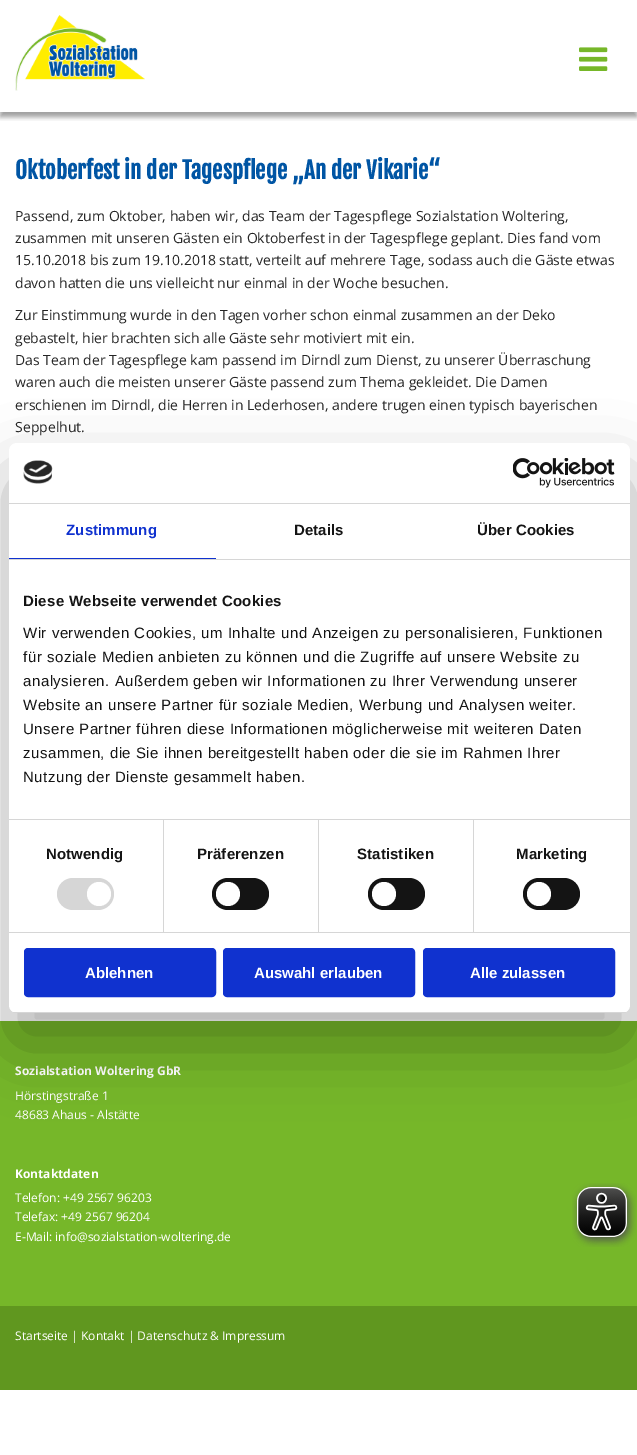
%!PS-Adobe-3.0
%%BoundingBox: 0 0 637 1455
%%LanguageLevel: 3
%%Pages: 1
%%EndComments
%%BeginProlog
/setink { dup -16 bitshift 255 div exch dup -8 bitshift 255 and 255 div exch 255 and 255 div setrgbcolor } def
/usefont { [ exch dup neg 0 0 3 -1 roll 0 0 ] selectfont } def
/setalpha { dup .setfillconstantalpha .setstrokeconstantalpha } def
/disc { newpath 0 360 arc closepath } def
/rrect { 5 dict begin { /r /h /w /y /x } { exch def } forall
  x r add y moveto x w add y 2 copy h add r arct x w add y h add x 1 index r arct
  x y h add x y r arct x y 2 copy exch w add exch r arct closepath end } def
/softshadow { 12 dict begin { /a /b /q /h /w /y /x } { exch def } forall gsave /was 0 def
  9 -2 -9 { dup b mul 4 div /e exch def 1 sub .425 mul 2.718 exch exp 1 add a .99 .min exch div /now exch def
    1 1 now sub 1 was sub div sub setalpha /was now def
    w h .min e 2 mul add 0 gt { x e sub y e sub w e 2 mul add h e 2 mul add
      q e add b .6 mul add w h .min 2 div e add .min 0 .max rrect fill } if } for grestore end } def
/drawimage { 5 dict begin { /h /w /y /x /name } { exch def } forall
  gsave x y translate w h scale
  w h 8 [w 0 0 h 0 0] name (r) file false 3 colorimage grestore end } def
%%EndProlog
%%BeginSetup
<< /PageSize [637 1455] /PageUsesTransparency true >> setpagedevice
%%EndSetup
%%Page: 1 1
0 .pushpdf14devicefilter
0 1455 translate 1 -1 scale
4 setmiterlimit
16#FFFFFF setink
0 0 637 1455 rectfill
gsave
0 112 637 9 rectclip
16#141414 setink
0 5 637 112 0 2.5 0.4 softshadow
grestore
(img1.raw) 15 15 130 76 drawimage
(img2.raw) 579 47 29 24 drawimage
/FjallaOne-Bold 23 usefont
16#0055A4 setink
15 179 moveto (Oktoberfest in der Tagespflege „An der Vikarie“) show
/OpenSans-Regular 14 usefont
16#252525 setink
[
    [(Passend, zum Oktober, haben wir, das Team der Tagespflege Sozialstation Woltering,) 15 221]
    [(zusammen mit unseren Gästen ein Oktoberfest in der Tagespflege geplant. Dies fand vom) 15 243]
    [(15.10.2018 bis zum 19.10.2018 statt, verteilt auf mehrere Tage, sodass auch die Gäste etwas) 15 265]
    [(davon hatten die uns vielleicht nur einmal in der Woche besuchen.) 15 288]
    [(Zur Einstimmung wurde in den Tagen vorher schon einmal zusammen an der Deko) 15 320]
    [(gebastelt, hier brachten sich alle Gäste sehr motiviert mit ein.) 15 343]
    [(Das Team der Tagespflege kam passend im Dirndl zum Dienst, zu unserer Überraschung) 15 365]
    [(waren auch die meisten unserer Gäste passend zum Thema gekleidet. Die Damen) 15 387]
    [(erschienen im Dirndl, die Herren in Lederhosen, andere trugen einen typisch bayerischen) 15 410]
    [(Seppelhut.) 15 432]
] { aload pop moveto show } forall
16#76B729 setink
0 1021 637 285 rectfill
/OpenSans-Bold 12 usefont
16#FFFFFF setink
15 1075 moveto (Sozialstation Woltering GbR) show
/OpenSans-Regular 12 usefont
15 1100 moveto (Hörstingstraße 1) show
15 1119 moveto (48683 Ahaus - Alstätte) show
/OpenSans-Bold 12 usefont
15 1178 moveto (Kontaktdaten) show
/OpenSans-Regular 12 usefont
[
    [(Telefon: +49 2567 96203) 15 1202]
    [(Telefax: +49 2567 96204) 15 1221]
    [(E-Mail: info@sozialstation-woltering.de) 15 1241]
] { aload pop moveto show } forall
16#60971F setink
0 1306 637 84 rectfill
16#FFFFFF setink
15 1340 moveto (Startseite | Kontakt | Datenschutz & Impressum) show
16#000000 setink
9 475 621 570 8 34 0.3 softshadow
16#FFFFFF setink
9 443 621 570 8 rrect fill
16#D6D6D6 setink
9 503 621 1 rectfill
(img3.raw) 23 460 30 24 drawimage
(img4.raw) 513 458 102 30 drawimage
9 559 621 1 rectfill
16#1032CF setink
9 558 207 1 rectfill
/LiberationSans-Bold 15 usefont
66 535 moveto 0.1 0 (Zustimmung) ashow
16#141414 setink
294 535 moveto 0.1 0 (Details) ashow
477 535 moveto 0.1 0 (Über Cookies) ashow
16#D6D6D6 setink
9 819 621 1 rectfill
16#141414 setink
23 606 moveto 0.25 0 (Diese Webseite verwendet Cookies) ashow
/LiberationSans-Regular 15 usefont
23 638 moveto 0.5 0 (Wir verwenden Cookies, um Inhalte und Anzeigen zu personalisieren, Funktionen) ashow
23 662 moveto 0.5 0 (für soziale Medien anbieten zu können und die Zugriffe auf unsere Website zu) ashow
23 686 moveto 0.5 0 (analysieren. Außerdem geben wir Informationen zu Ihrer Verwendung unserer) ashow
23 710 moveto 0.5 0 (Website an unsere Partner für soziale Medien, Werbung und Analysen weiter.) ashow
23 734 moveto 0.5 0 (Unsere Partner führen diese Informationen möglicherweise mit weiteren Daten) ashow
23 758 moveto 0.5 0 (zusammen, die Sie ihnen bereitgestellt haben oder die sie im Rahmen Ihrer) ashow
23 782 moveto 0.5 0 (Nutzung der Dienste gesammelt haben.) ashow
16#D6D6D6 setink
9 932 621 1 rectfill
163 820 1 112 rectfill
/LiberationSans-Bold 15 usefont
16#141414 setink
46 859 moveto 0.1 0 (Notwendig) ashow
16#D6D6D6 setink
57 878 57 32 16 rrect fill
16#FFFFFF setink
99 894 12 disc fill
16#D6D6D6 setink
318 820 1 112 rectfill
16#141414 setink
197 859 moveto 0.1 0 (Präferenzen) ashow
212 878 57 32 16 rrect fill
16#FFFFFF setink
228 894 12 disc fill
16#D6D6D6 setink
473 820 1 112 rectfill
16#141414 setink
357 859 moveto 0.1 0 (Statistiken) ashow
368 878 57 32 16 rrect fill
16#FFFFFF setink
384 894 12 disc fill
16#141414 setink
516 859 moveto 0.1 0 (Marketing) ashow
523 878 57 32 16 rrect fill
16#FFFFFF setink
539 894 12 disc fill
gsave
9 443 621 570 8 rrect clip newpath
16#D6D6D6 setink
9 1012 621 1 rectfill
grestore
16#1032CF setink
25 949 190 47 3 rrect gsave fill grestore
2 setlinewidth
stroke
16#FFFFFF setink
85 978 moveto (Ablehnen) show
16#1032CF setink
224 949 190 47 3 rrect gsave fill grestore
stroke
16#FFFFFF setink
254 978 moveto (Auswahl erlauben) show
16#1032CF setink
424 949 190 47 3 rrect gsave fill grestore
stroke
16#FFFFFF setink
470 978 moveto (Alle zulassen) show
(img5.raw) 572 1183 64 64 drawimage
.poppdf14devicefilter showpage
%%EOF
